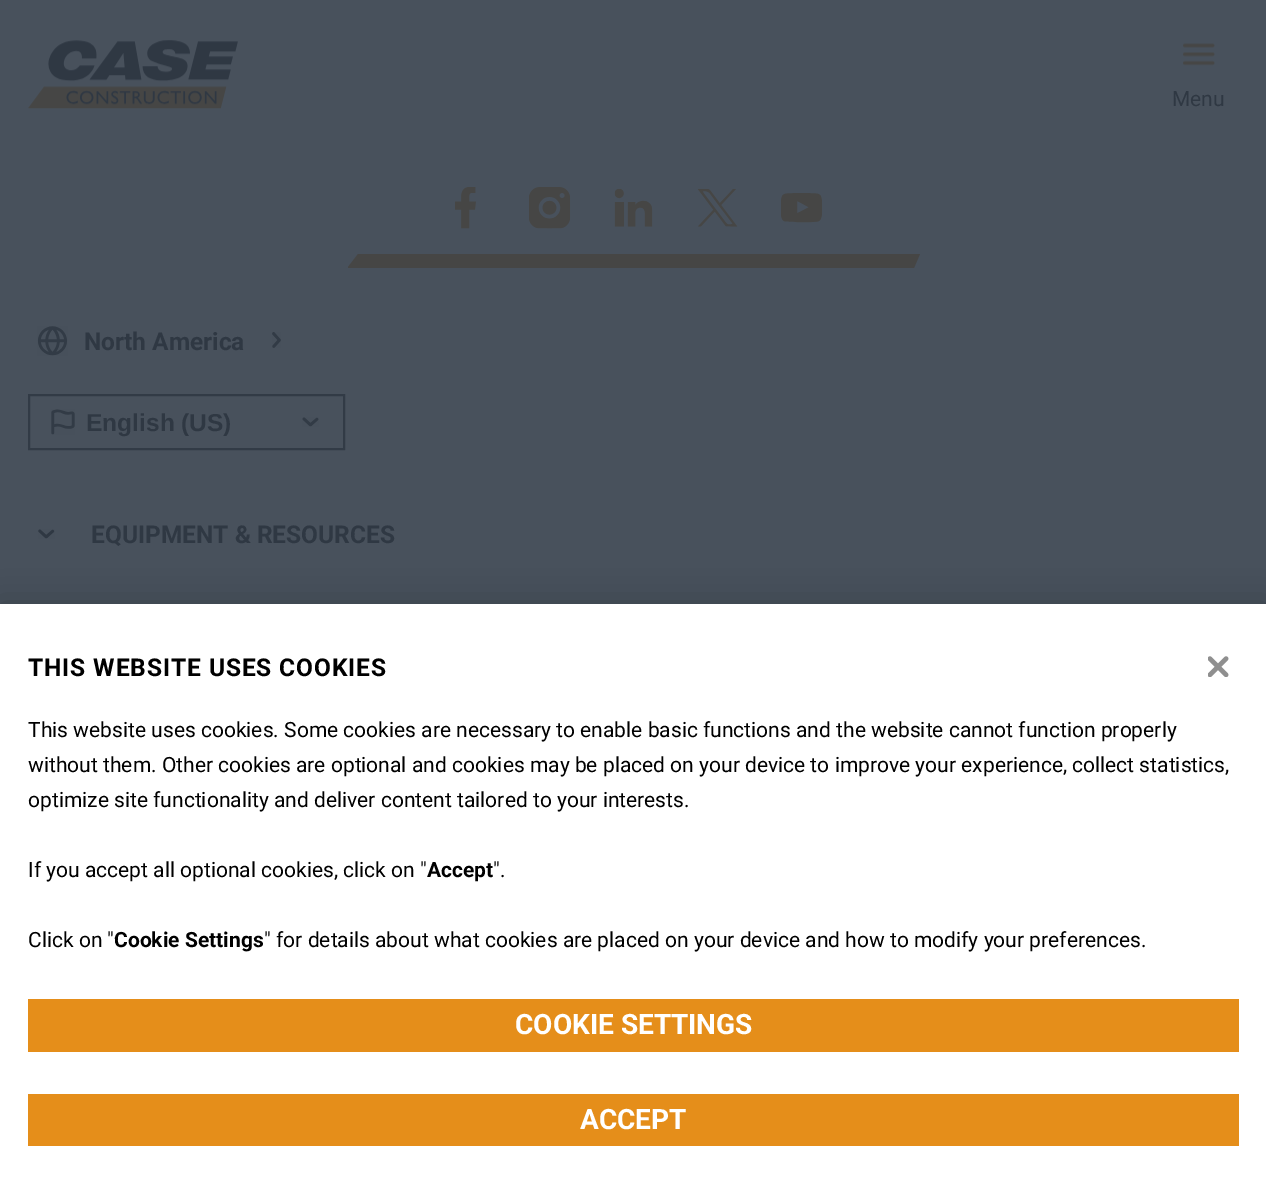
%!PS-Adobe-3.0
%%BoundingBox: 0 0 1266 1188
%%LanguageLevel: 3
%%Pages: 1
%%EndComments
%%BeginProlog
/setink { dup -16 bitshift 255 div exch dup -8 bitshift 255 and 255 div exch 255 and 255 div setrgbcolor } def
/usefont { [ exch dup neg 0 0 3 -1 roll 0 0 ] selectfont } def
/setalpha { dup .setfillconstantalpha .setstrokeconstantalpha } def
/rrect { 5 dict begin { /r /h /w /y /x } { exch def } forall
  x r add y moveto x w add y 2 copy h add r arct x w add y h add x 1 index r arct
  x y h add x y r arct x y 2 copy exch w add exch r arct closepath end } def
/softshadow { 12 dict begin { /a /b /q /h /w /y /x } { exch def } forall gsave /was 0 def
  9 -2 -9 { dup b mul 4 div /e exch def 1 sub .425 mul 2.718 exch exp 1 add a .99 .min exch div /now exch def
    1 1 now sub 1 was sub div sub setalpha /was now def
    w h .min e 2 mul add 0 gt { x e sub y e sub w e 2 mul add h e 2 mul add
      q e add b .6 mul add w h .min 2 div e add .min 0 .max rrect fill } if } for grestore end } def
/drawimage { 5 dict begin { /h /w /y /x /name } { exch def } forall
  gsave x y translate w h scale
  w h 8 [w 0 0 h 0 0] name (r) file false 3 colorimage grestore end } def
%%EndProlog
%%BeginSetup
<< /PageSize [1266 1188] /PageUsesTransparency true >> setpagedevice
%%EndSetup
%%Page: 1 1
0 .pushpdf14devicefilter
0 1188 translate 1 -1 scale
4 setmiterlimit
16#48515C setink
0 0 1266 1188 rectfill
(img1.raw) 28 40 210 69 drawimage
(img2.raw) 1183 43 32 23 drawimage
/Roboto-Regular 21 usefont
16#2F3843 setink
1172 106 moveto (Menu) show
(img3.raw) 455 187 21 42 drawimage
(img4.raw) 529 187 42 42 drawimage
(img5.raw) 614 188 39 39 drawimage
(img6.raw) 697 188 41 39 drawimage
(img7.raw) 781 193 42 30 drawimage
16#464645 setink
348 267 moveto 358 254 lineto 920 254 lineto 914 268 lineto 348 268 lineto closepath fill
(img8.raw) 37 326 31 30 drawimage
/Roboto-Bold 24.5 usefont
16#2F3843 setink
84 350 moveto (North America) show
(img9.raw) 272 332 9 16 drawimage
16#323B46 setink
2 setlinewidth
29 395 315 54 rectstroke
(img10.raw) 51 409 24 26 drawimage
/LiberationSans-Bold 24.5 usefont
16#2F3843 setink
86 431 moveto (English \(US\)) show
(img11.raw) 302 417 17 10 drawimage
(img12.raw) 38 529 17 10 drawimage
/Roboto-Bold 24.5 usefont
91 543 moveto (EQUIPMENT & RESOURCES) show
16#000000 setink
0 604 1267 584 0 16 0.2 softshadow
16#FFFFFF setink
0 604 1266 584 rectfill
(img13.raw) 1208 656 21 21 drawimage
16#000000 setink
28 676 moveto 0.9 0 (THIS WEBSITE USES COOKIES) ashow
/Roboto-Regular 21 usefont
[
    [(This website uses cookies. Some cookies are necessary to enable basic functions and the website cannot function properly) 28 737]
    [(without them. Other cookies are optional and cookies may be placed on your device to improve your experience, collect statistics,) 28 772]
    [(optimize site functionality and deliver content tailored to your interests.) 28 807]
    [(If you accept all optional cookies, click on ") 28 877]
] { aload pop moveto show } forall
/Roboto-Bold 21 usefont
427 877 moveto (Accept) show
/Roboto-Regular 21 usefont
493 877 moveto (".) show
28 947 moveto (Click on ") show
/Roboto-Bold 21 usefont
114 947 moveto (Cookie Settings) show
/Roboto-Regular 21 usefont
264 947 moveto (" for details about what cookies are placed on your device and how to modify your preferences.) show
16#E58E1A setink
28 999 1211 53 rectfill
/Roboto-Bold 28 usefont
16#FFFFFF setink
515 1034 moveto (COOKIE SETTINGS) show
16#E58E1A setink
28 1094 1211 52 rectfill
16#FFFFFF setink
580 1129 moveto (ACCEPT) show
.poppdf14devicefilter showpage
%%EOF
